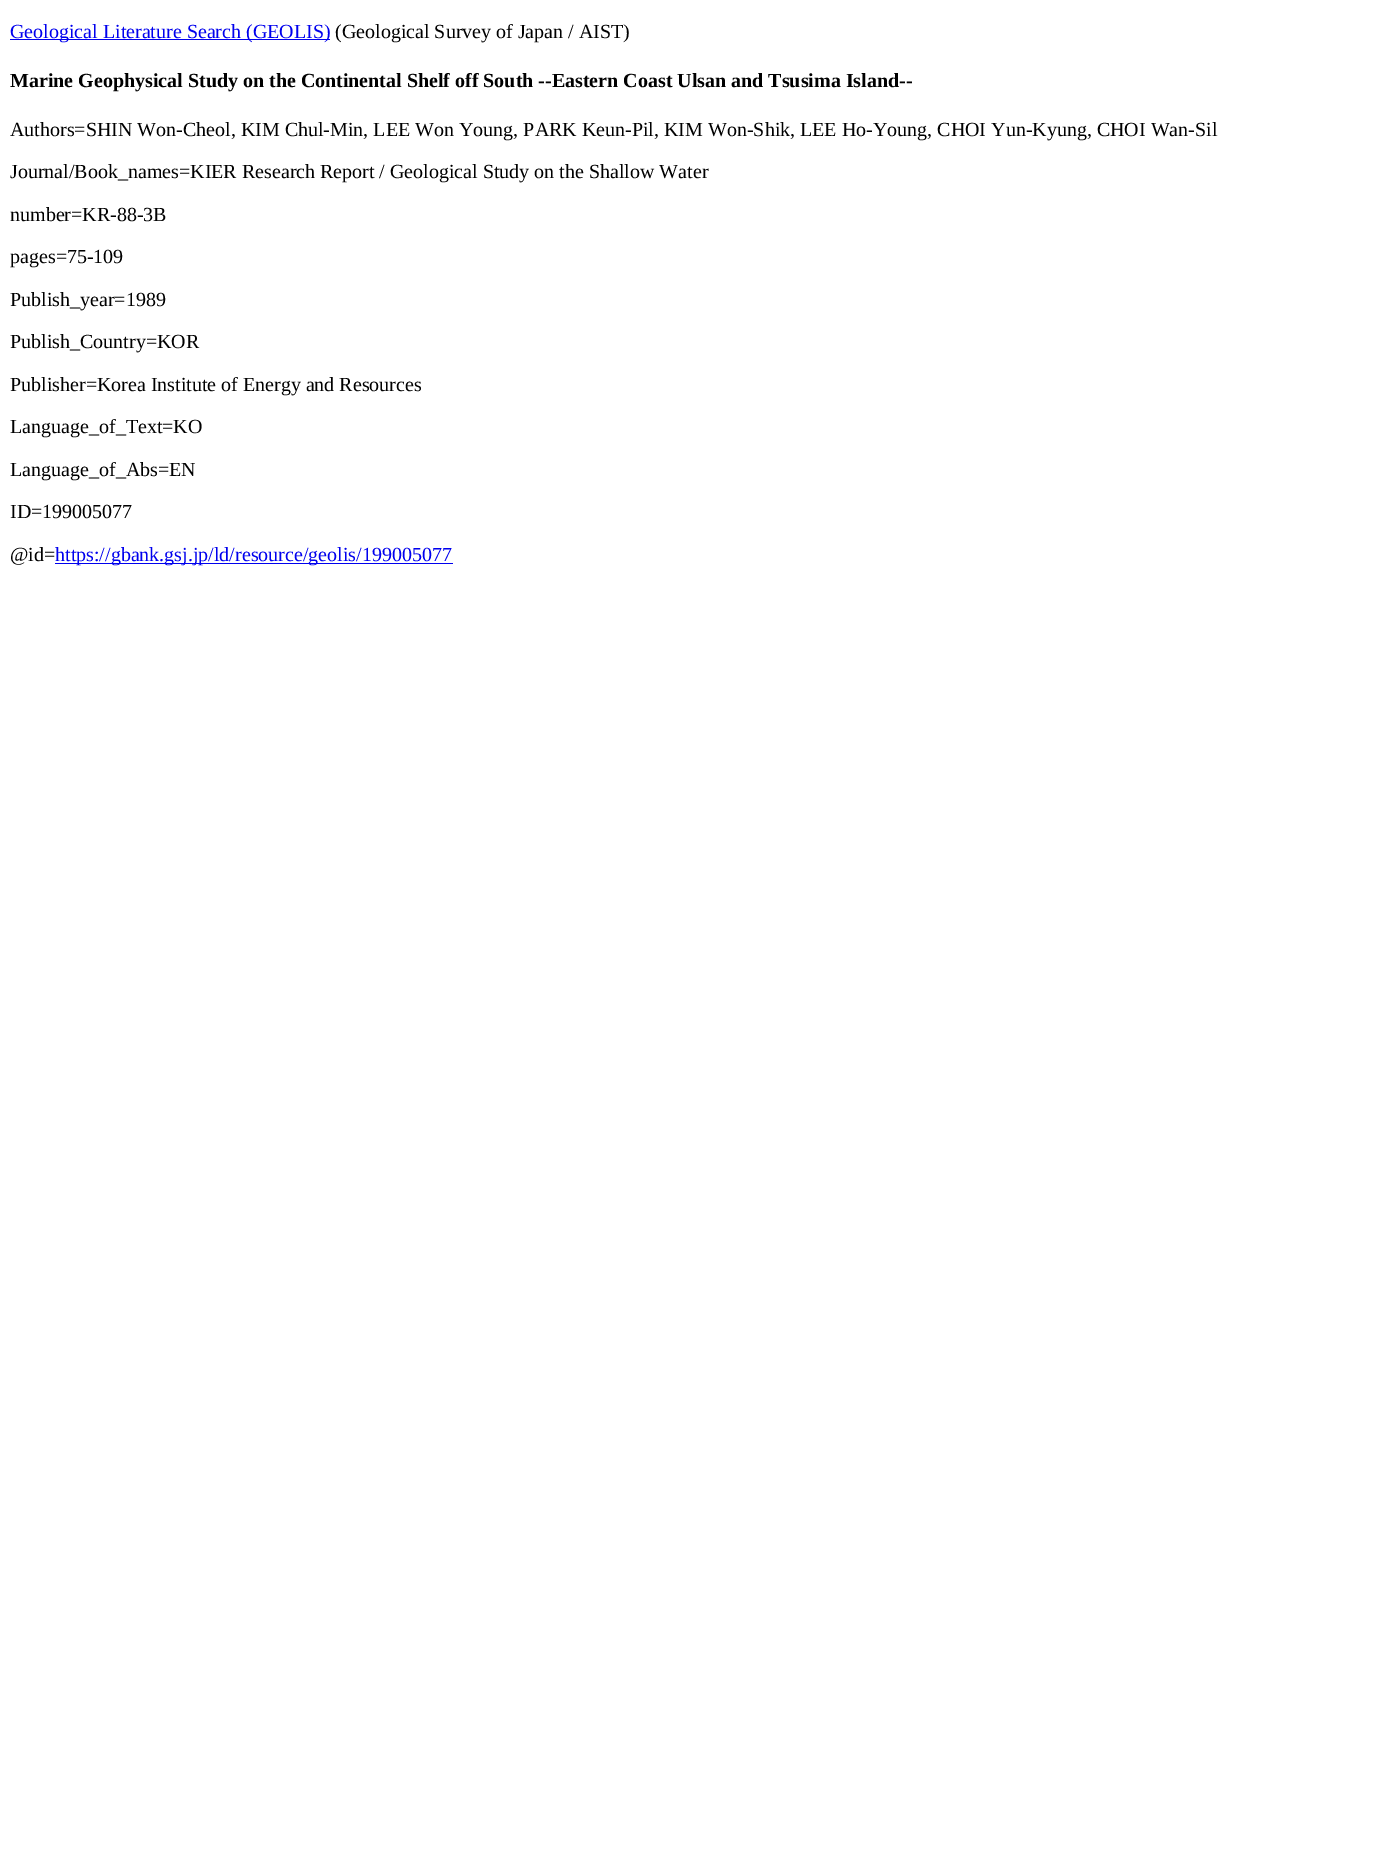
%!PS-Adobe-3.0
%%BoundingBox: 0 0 1378 1850
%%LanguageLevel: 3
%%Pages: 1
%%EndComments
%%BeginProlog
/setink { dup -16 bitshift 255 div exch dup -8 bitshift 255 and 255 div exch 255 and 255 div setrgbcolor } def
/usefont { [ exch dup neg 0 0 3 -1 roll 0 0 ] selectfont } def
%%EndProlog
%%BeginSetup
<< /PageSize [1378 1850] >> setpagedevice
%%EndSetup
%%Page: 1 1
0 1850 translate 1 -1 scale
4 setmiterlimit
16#FFFFFF setink
0 0 1378 1850 rectfill
16#0000EE setink
10 39 320 1 rectfill
/LiberationSerif-Regular 20 usefont
10 38 moveto (Geological Literature Search \(GEOLIS\)) show
16#000000 setink
335 38 moveto (\(Geological Survey of Japan / AIST\)) show
/LiberationSerif-Bold 20 usefont
10 87 moveto (Marine Geophysical Study on the Continental Shelf off South --Eastern Coast Ulsan and Tsusima Island--) show
/LiberationSerif-Regular 20 usefont
[
    [(Authors=SHIN Won-Cheol, KIM Chul-Min, LEE Won Young, PARK Keun-Pil, KIM Won-Shik, LEE Ho-Young, CHOI Yun-Kyung, CHOI Wan-Sil) 10 136]
    [(Journal/Book_names=KIER Research Report / Geological Study on the Shallow Water) 10 178]
    [(number=KR-88-3B) 10 221]
    [(pages=75-109) 10 263]
    [(Publish_year=1989) 10 306]
    [(Publish_Country=KOR) 10 348]
    [(Publisher=Korea Institute of Energy and Resources) 10 391]
    [(Language_of_Text=KO) 10 433]
    [(Language_of_Abs=EN) 10 476]
    [(ID=199005077) 10 518]
    [(@id=) 10 561]
] { aload pop moveto show } forall
16#0000EE setink
55 563 398 1 rectfill
55 561 moveto (https://gbank.gsj.jp/ld/resource/geolis/199005077) show
showpage
%%EOF
